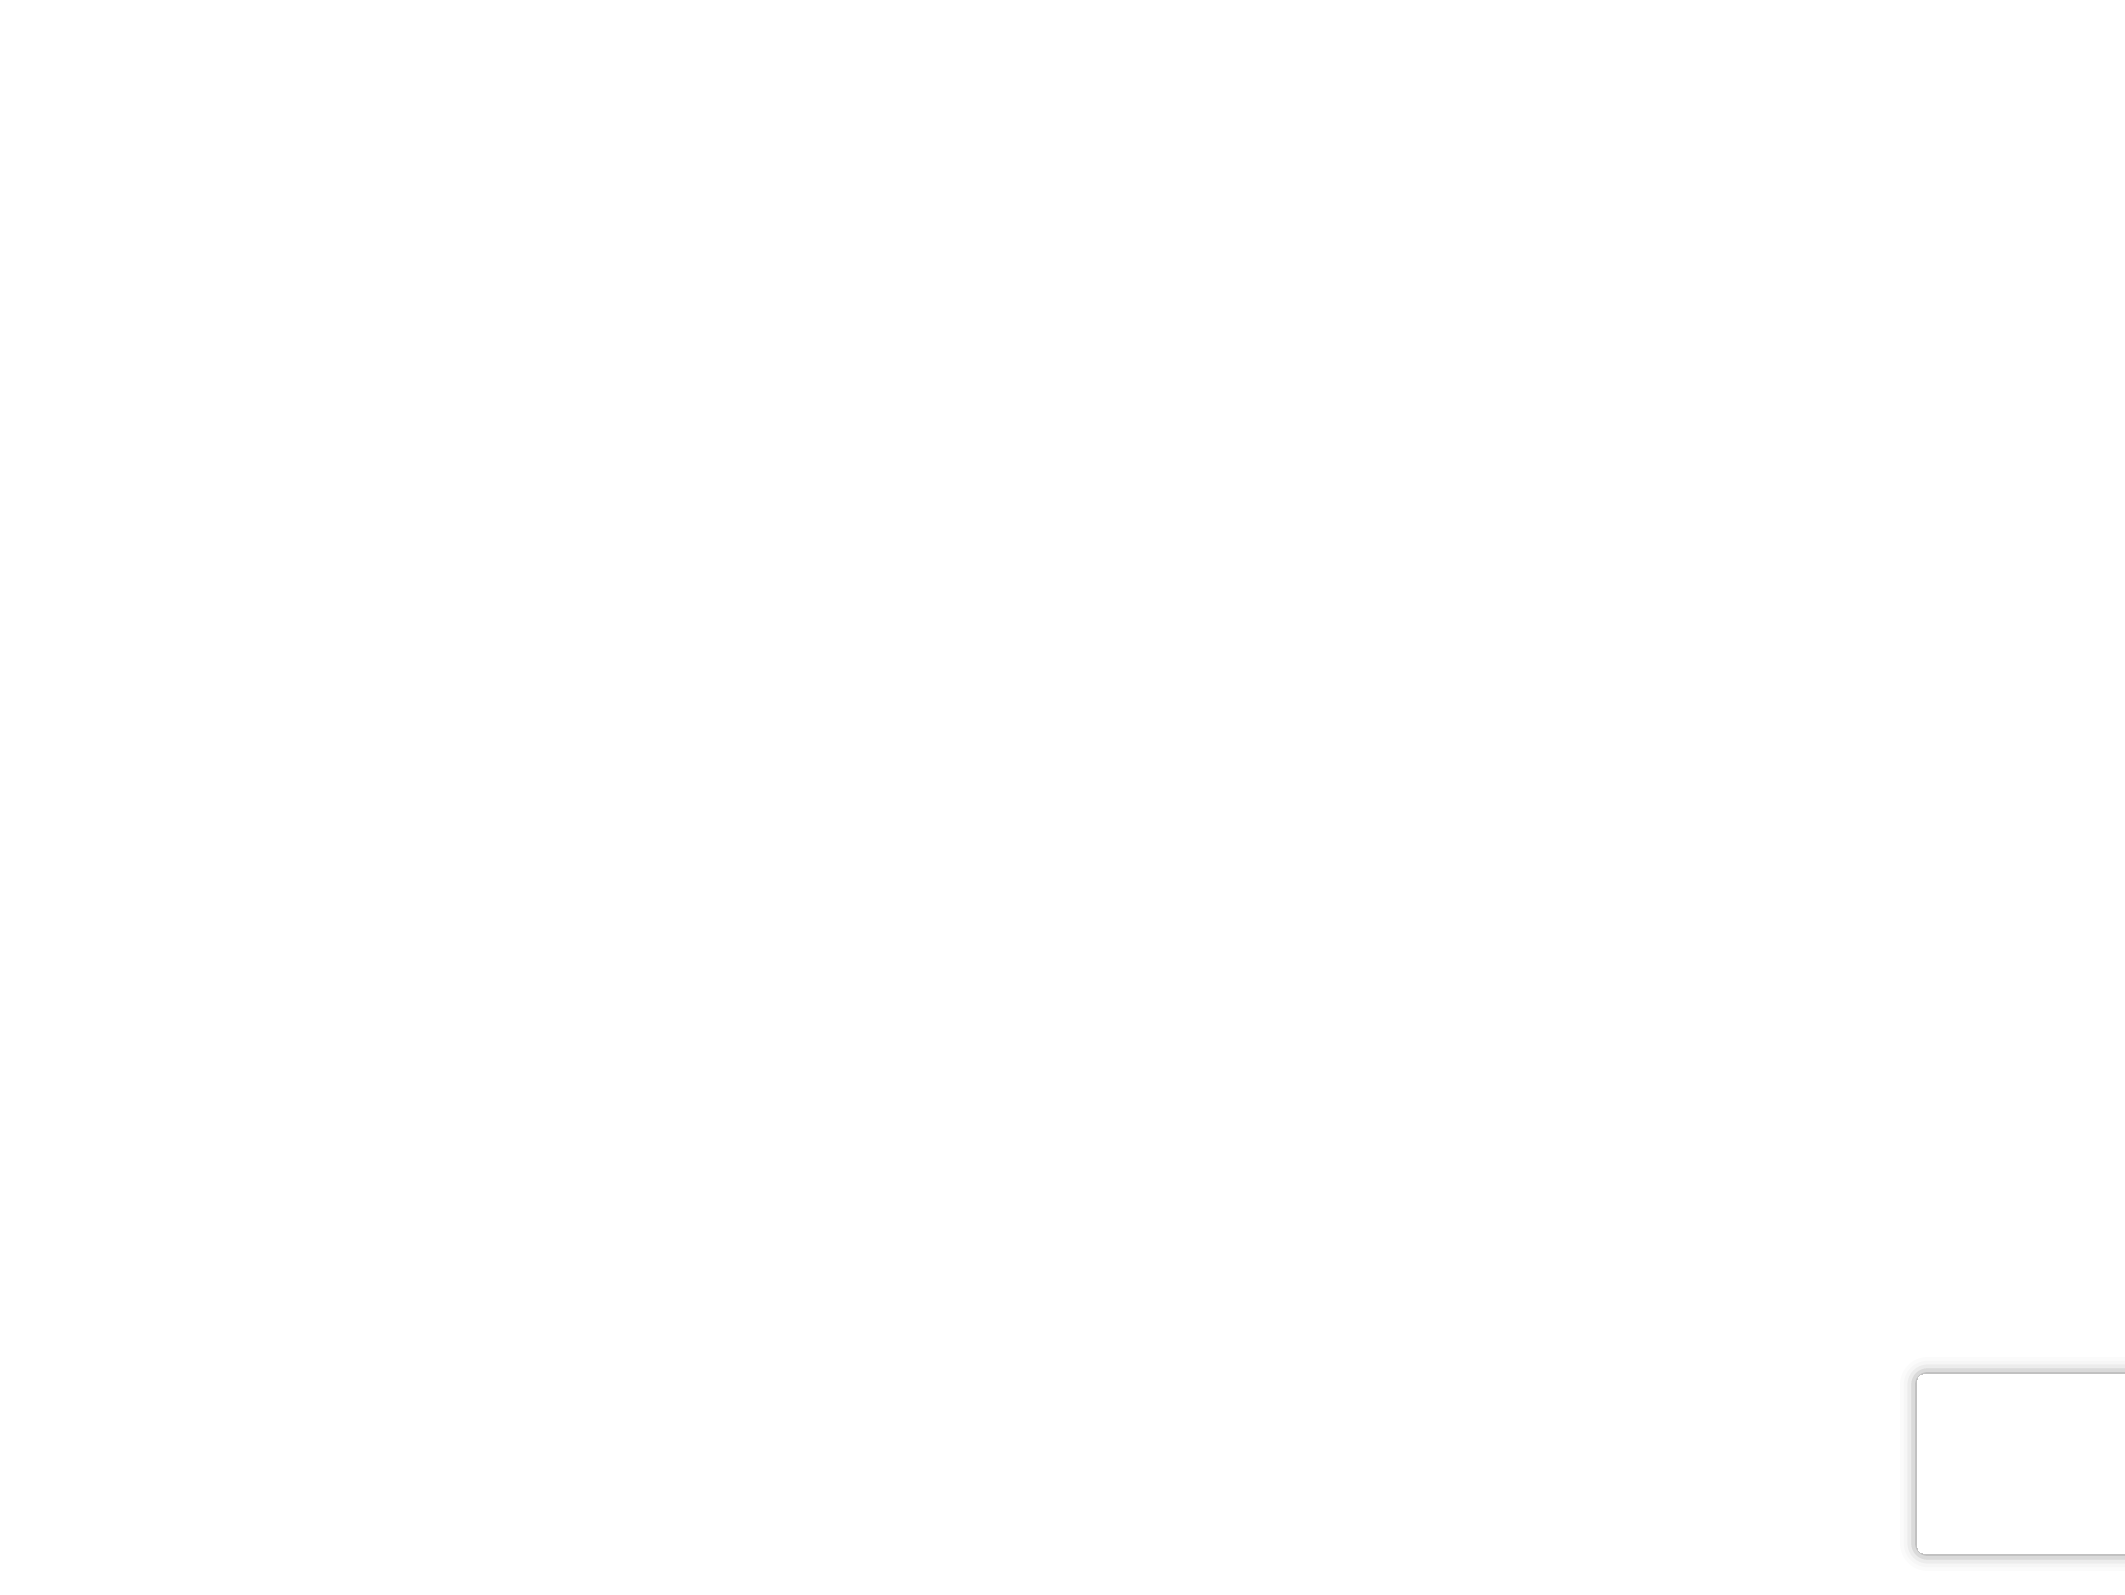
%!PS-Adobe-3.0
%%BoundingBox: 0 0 2125 1595
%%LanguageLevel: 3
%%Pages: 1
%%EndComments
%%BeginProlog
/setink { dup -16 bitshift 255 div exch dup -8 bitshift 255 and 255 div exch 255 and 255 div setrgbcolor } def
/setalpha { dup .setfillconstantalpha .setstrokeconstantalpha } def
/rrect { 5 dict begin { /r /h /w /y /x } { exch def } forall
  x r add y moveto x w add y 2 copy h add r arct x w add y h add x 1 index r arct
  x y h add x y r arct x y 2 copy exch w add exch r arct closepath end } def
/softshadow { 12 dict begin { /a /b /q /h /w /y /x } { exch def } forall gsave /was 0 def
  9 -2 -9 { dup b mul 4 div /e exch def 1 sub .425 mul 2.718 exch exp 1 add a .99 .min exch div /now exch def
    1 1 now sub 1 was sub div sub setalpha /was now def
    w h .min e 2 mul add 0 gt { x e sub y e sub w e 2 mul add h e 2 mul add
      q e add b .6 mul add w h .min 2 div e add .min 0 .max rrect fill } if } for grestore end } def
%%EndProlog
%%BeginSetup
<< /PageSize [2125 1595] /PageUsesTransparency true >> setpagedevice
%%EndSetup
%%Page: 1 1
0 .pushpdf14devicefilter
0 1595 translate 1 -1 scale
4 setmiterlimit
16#FFFFFF setink
0 0 2125 1595 rectfill
gsave
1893 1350 moveto 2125 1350 lineto 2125 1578 lineto 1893 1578 lineto closepath 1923 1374 moveto 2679 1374 lineto 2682.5 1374 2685 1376.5 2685 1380 curveto 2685 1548 lineto 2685 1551.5 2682.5 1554 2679 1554 curveto 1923 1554 lineto 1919.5 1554 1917 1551.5 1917 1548 curveto 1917 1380 lineto 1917 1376.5 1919.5 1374 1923 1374 curveto closepath eoclip newpath
16#808080 setink
1917 1374 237 180 6 7.5 1 softshadow
grestore
.poppdf14devicefilter showpage
%%EOF
